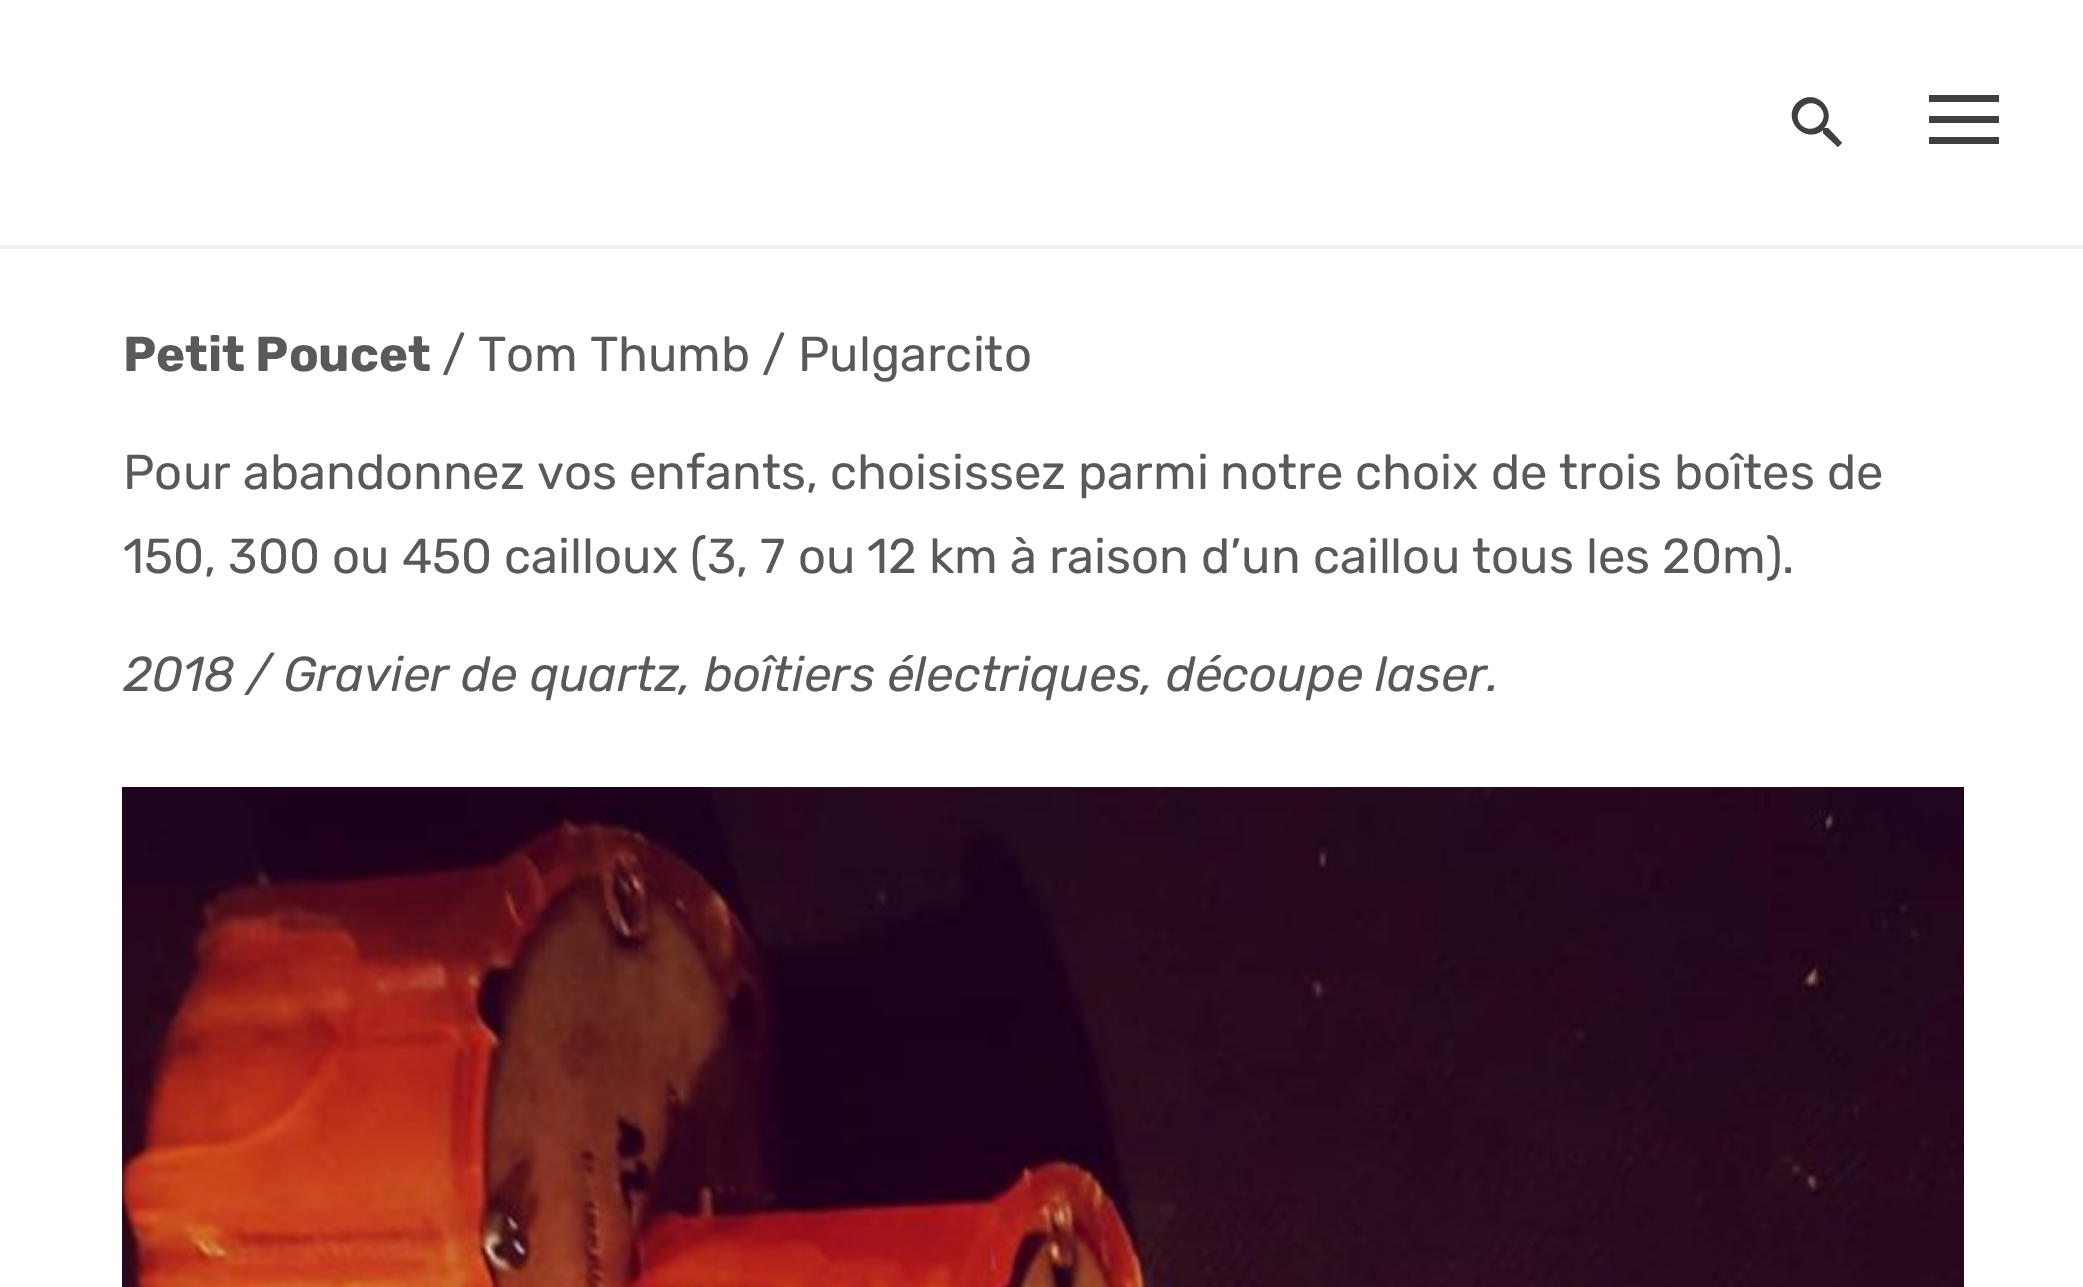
%!PS-Adobe-3.0
%%BoundingBox: 0 0 2083 1287
%%LanguageLevel: 3
%%Pages: 1
%%EndComments
%%BeginProlog
/setink { dup -16 bitshift 255 div exch dup -8 bitshift 255 and 255 div exch 255 and 255 div setrgbcolor } def
/usefont { [ exch dup neg 0 0 3 -1 roll 0 0 ] selectfont } def
/drawimage { 5 dict begin { /h /w /y /x /name } { exch def } forall
  gsave x y translate w h scale
  w h 8 [w 0 0 h 0 0] name (r) file false 3 colorimage grestore end } def
%%EndProlog
%%BeginSetup
<< /PageSize [2083 1287] >> setpagedevice
%%EndSetup
%%Page: 1 1
0 1287 translate 1 -1 scale
4 setmiterlimit
16#FFFFFF setink
0 0 2083 1287 rectfill
16#F0F0F0 setink
0 245 2083 4 rectfill
16#404044 setink
1828 128 moveto 1842 143 lineto 1838 147 lineto 1823 133 lineto 1823 131 lineto 1823 130 lineto 1805 145 1781 119 1797 103 curveto 1814 86 1839 110 1824 128 curveto 1825 128 lineto closepath 1801 125 moveto 1813 137 1832 119 1820 107 curveto 1808 95 1790 113 1801 125 curveto closepath fill
[
    [1929 95 70 7 16#404044]
    [1929 137 70 7 16#404044]
    [1929 116 70 7 16#404044]
] { aload pop setink rectfill } forall
/Rubik-Bold 49 usefont
16#595959 setink
123 371 moveto (Petit Poucet) show
/Rubik-Regular 49 usefont
[
    [(/ Tom Thumb / Pulgarcito) 442 371]
    [(Pour abandonnez vos enfants, choisissez parmi notre choix de trois boîtes de) 123 489]
    [(150, 300 ou 450 cailloux \(3, 7 ou 12 km à raison d’un caillou tous les 20m\).) 123 573]
] { aload pop moveto show } forall
/Rubik-Italic 49 usefont
123 691 moveto (2018 / Gravier de quartz, boîtiers électriques, découpe laser.) show
(img1.raw) 122 787 1842 500 drawimage
showpage
%%EOF
